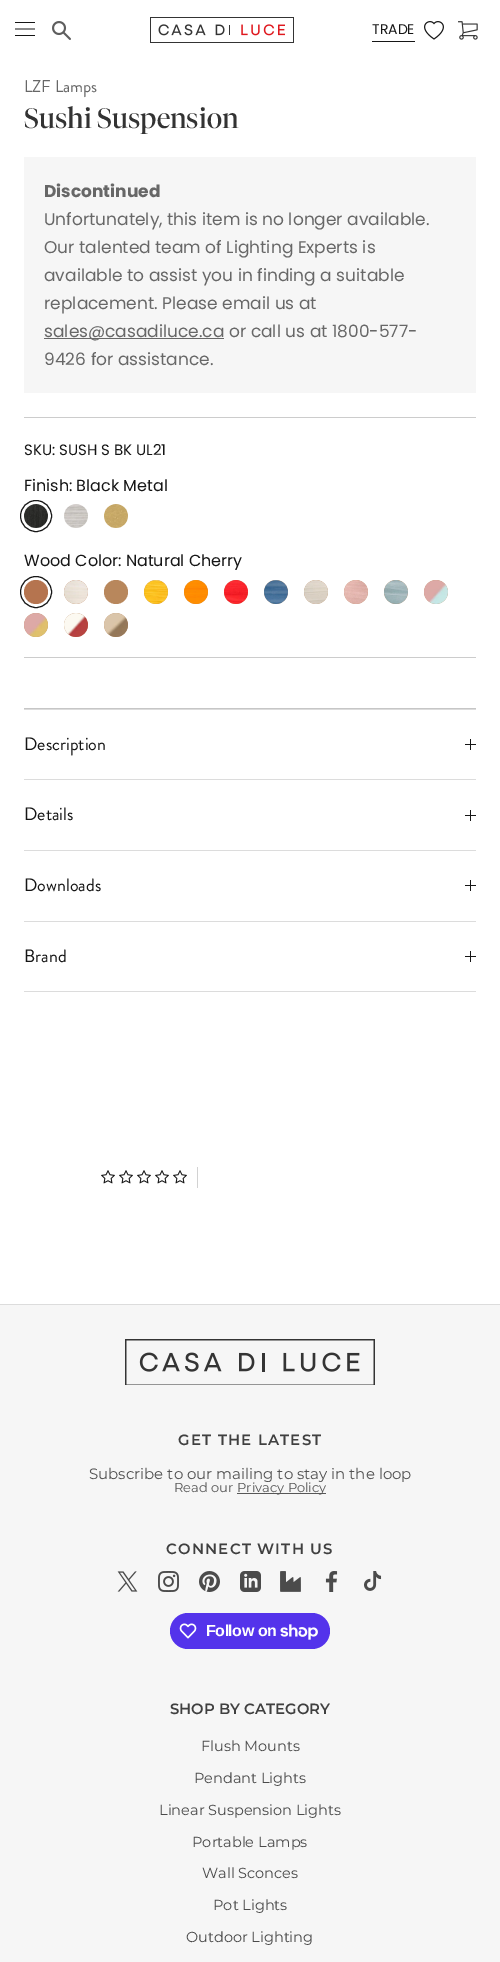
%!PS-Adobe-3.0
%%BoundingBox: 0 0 500 1962
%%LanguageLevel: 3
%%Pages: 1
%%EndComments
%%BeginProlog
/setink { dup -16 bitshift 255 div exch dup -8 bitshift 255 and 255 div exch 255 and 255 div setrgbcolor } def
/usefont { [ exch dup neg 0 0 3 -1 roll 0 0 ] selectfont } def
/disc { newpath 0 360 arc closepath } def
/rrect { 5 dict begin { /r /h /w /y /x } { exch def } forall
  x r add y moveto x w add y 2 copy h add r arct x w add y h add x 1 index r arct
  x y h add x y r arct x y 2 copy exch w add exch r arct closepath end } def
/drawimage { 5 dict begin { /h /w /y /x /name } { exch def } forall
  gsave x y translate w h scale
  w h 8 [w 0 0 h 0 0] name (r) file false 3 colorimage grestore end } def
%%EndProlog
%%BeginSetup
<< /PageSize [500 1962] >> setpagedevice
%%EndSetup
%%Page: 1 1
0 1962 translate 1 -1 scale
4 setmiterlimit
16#FFFFFF setink
0 0 500 1962 rectfill
(img1.raw) 15 22 20 14 drawimage
(img2.raw) 52 21 19 19 drawimage
(img3.raw) 150 17 144 26 drawimage
16#161616 setink
372 41 43 1 rectfill
/Poppins-Regular 14 usefont
372 34 moveto (TRADE) show
(img4.raw) 424 21 20 19 drawimage
(img5.raw) 458 21 20 19 drawimage
/BrandonGrotesque-Regular 17 usefont
16#676767 setink
24 92 moveto (LZF Lamps) show
/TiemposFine-Regular 28 usefont
16#333333 setink
24 128 moveto (Sushi Suspension) show
16#F6F6F6 setink
24 157 452 236 rectfill
/Poppins-Bold 17 usefont
16#676767 setink
44 197 moveto (Discontinued) show
/Poppins-Regular 17 usefont
[
    [(Unfortunately, this item is no longer available.) 44 225]
    [(Our talented team of Lighting Experts is) 44 253]
    [(available to assist you in finding a suitable) 44 281]
    [(replacement. Please email us at) 44 309]
] { aload pop moveto show } forall
44 338 180 1 rectfill
44 337 moveto (sales@casadiluce.ca or call us at 1800-577-) show
44 365 moveto (9426 for assistance.) show
16#CCCCCC setink
24 417 452 1 rectfill
24 657 452 1 rectfill
/Poppins-Regular 15 usefont
16#161616 setink
24 455 moveto (SKU: SUSH S BK UL21) show
/Poppins-Regular 16 usefont
24 491 moveto (Finish: Black Metal) show
(img6.raw) 24 504 24 24 drawimage
36 516 15.5 disc stroke
(img7.raw) 64 504 24 24 drawimage
(img8.raw) 104 504 24 24 drawimage
24 566 moveto (Wood Color: Natural Cherry) show
16#B5744F setink
36 592 12 disc fill
16#161616 setink
36 592 15.5 disc stroke
(img9.raw) 64 580 24 24 drawimage
16#B8875C setink
116 592 12 disc fill
(img10.raw) 144 580 24 24 drawimage
(img11.raw) 184 580 24 24 drawimage
(img12.raw) 224 580 24 24 drawimage
(img13.raw) 264 580 24 24 drawimage
(img14.raw) 304 580 24 24 drawimage
(img15.raw) 344 580 24 24 drawimage
(img16.raw) 384 580 24 24 drawimage
(img17.raw) 424 580 24 24 drawimage
(img18.raw) 24 613 24 24 drawimage
(img19.raw) 64 613 24 24 drawimage
(img20.raw) 104 613 24 24 drawimage
[
    [24 708 452 1 16#C6C6C6]
    [24 709 452 1 16#DCDCDC]
    [24 779 452 1 16#DCDCDC]
] { aload pop setink rectfill } forall
/BrandonGrotesque-Regular 18 usefont
16#161616 setink
24 750 moveto (Description) show
[
    [470 739 1 11 16#161616]
    [465 744 11 1 16#161616]
    [24 850 452 1 16#DCDCDC]
] { aload pop setink rectfill } forall
16#161616 setink
24 820 moveto (Details) show
[
    [470 810 1 11 16#161616]
    [465 815 11 1 16#161616]
    [24 921 452 1 16#DCDCDC]
] { aload pop setink rectfill } forall
16#161616 setink
24 891 moveto (Downloads) show
[
    [470 880 1 11 16#161616]
    [465 885 11 1 16#161616]
    [24 991 452 1 16#DCDCDC]
] { aload pop setink rectfill } forall
16#161616 setink
24 962 moveto (Brand) show
[
    [470 951 1 11 16#161616]
    [465 956 11 1 16#161616]
    [197 1167 1 21 16#D2D2D2]
] { aload pop setink rectfill } forall
(img21.raw) 101 1170 14 14 drawimage
(img21.raw) 119 1170 14 14 drawimage
(img21.raw) 137 1170 14 14 drawimage
(img21.raw) 155 1170 14 14 drawimage
(img21.raw) 173 1170 14 14 drawimage
16#F6F6F6 setink
0 1305 500 657 rectfill
16#DCDCDC setink
0 1304 500 1 rectfill
(img22.raw) 125 1339 250 46 drawimage
/Montserrat-SemiBold 14.9 usefont
16#404040 setink
178 1445 moveto 1.25 0 (GET THE LATEST) ashow
/Montserrat-Regular 15 usefont
16#515151 setink
89 1479 moveto (Subscribe to our mailing to stay in the loop) show
/Montserrat-Regular 13 usefont
16#575757 setink
174 1492 moveto (Read our) show
237 1493 89 1 rectfill
237 1492 moveto (Privacy Policy) show
/Montserrat-SemiBold 14.9 usefont
16#404040 setink
166 1554 moveto 1.25 0 (CONNECT WITH US) ashow
(img23.raw) 117 1571 21 21 drawimage
(img24.raw) 158 1571 21 21 drawimage
(img25.raw) 199 1571 21 21 drawimage
(img26.raw) 240 1571 21 21 drawimage
(img27.raw) 280 1571 21 21 drawimage
(img28.raw) 325 1571 13 21 drawimage
(img29.raw) 364 1571 18 20 drawimage
16#5433EB setink
170 1613 160 36 18 rrect fill
(img30.raw) 179 1623 18 16 drawimage
/LiberationSans-Bold 16 usefont
16#FFFFFF setink
206 1636 moveto -0.5 0 (Follow on) ashow
(img31.raw) 280 1624 38 16 drawimage
/Montserrat-SemiBold 14.9 usefont
16#404040 setink
170 1714 moveto (SHOP BY CATEGORY) show
/Montserrat-Regular 14.5 usefont
16#4B4B4B setink
[
    [(Flush Mounts) 201 1751]
    [(Pendant Lights) 194 1783]
    [(Linear Suspension Lights) 159 1815]
    [(Portable Lamps) 192 1847]
    [(Wall Sconces) 202 1878]
    [(Pot Lights) 213 1910]
    [(Outdoor Lighting) 186 1942]
] { aload pop moveto show } forall
showpage
%%EOF
